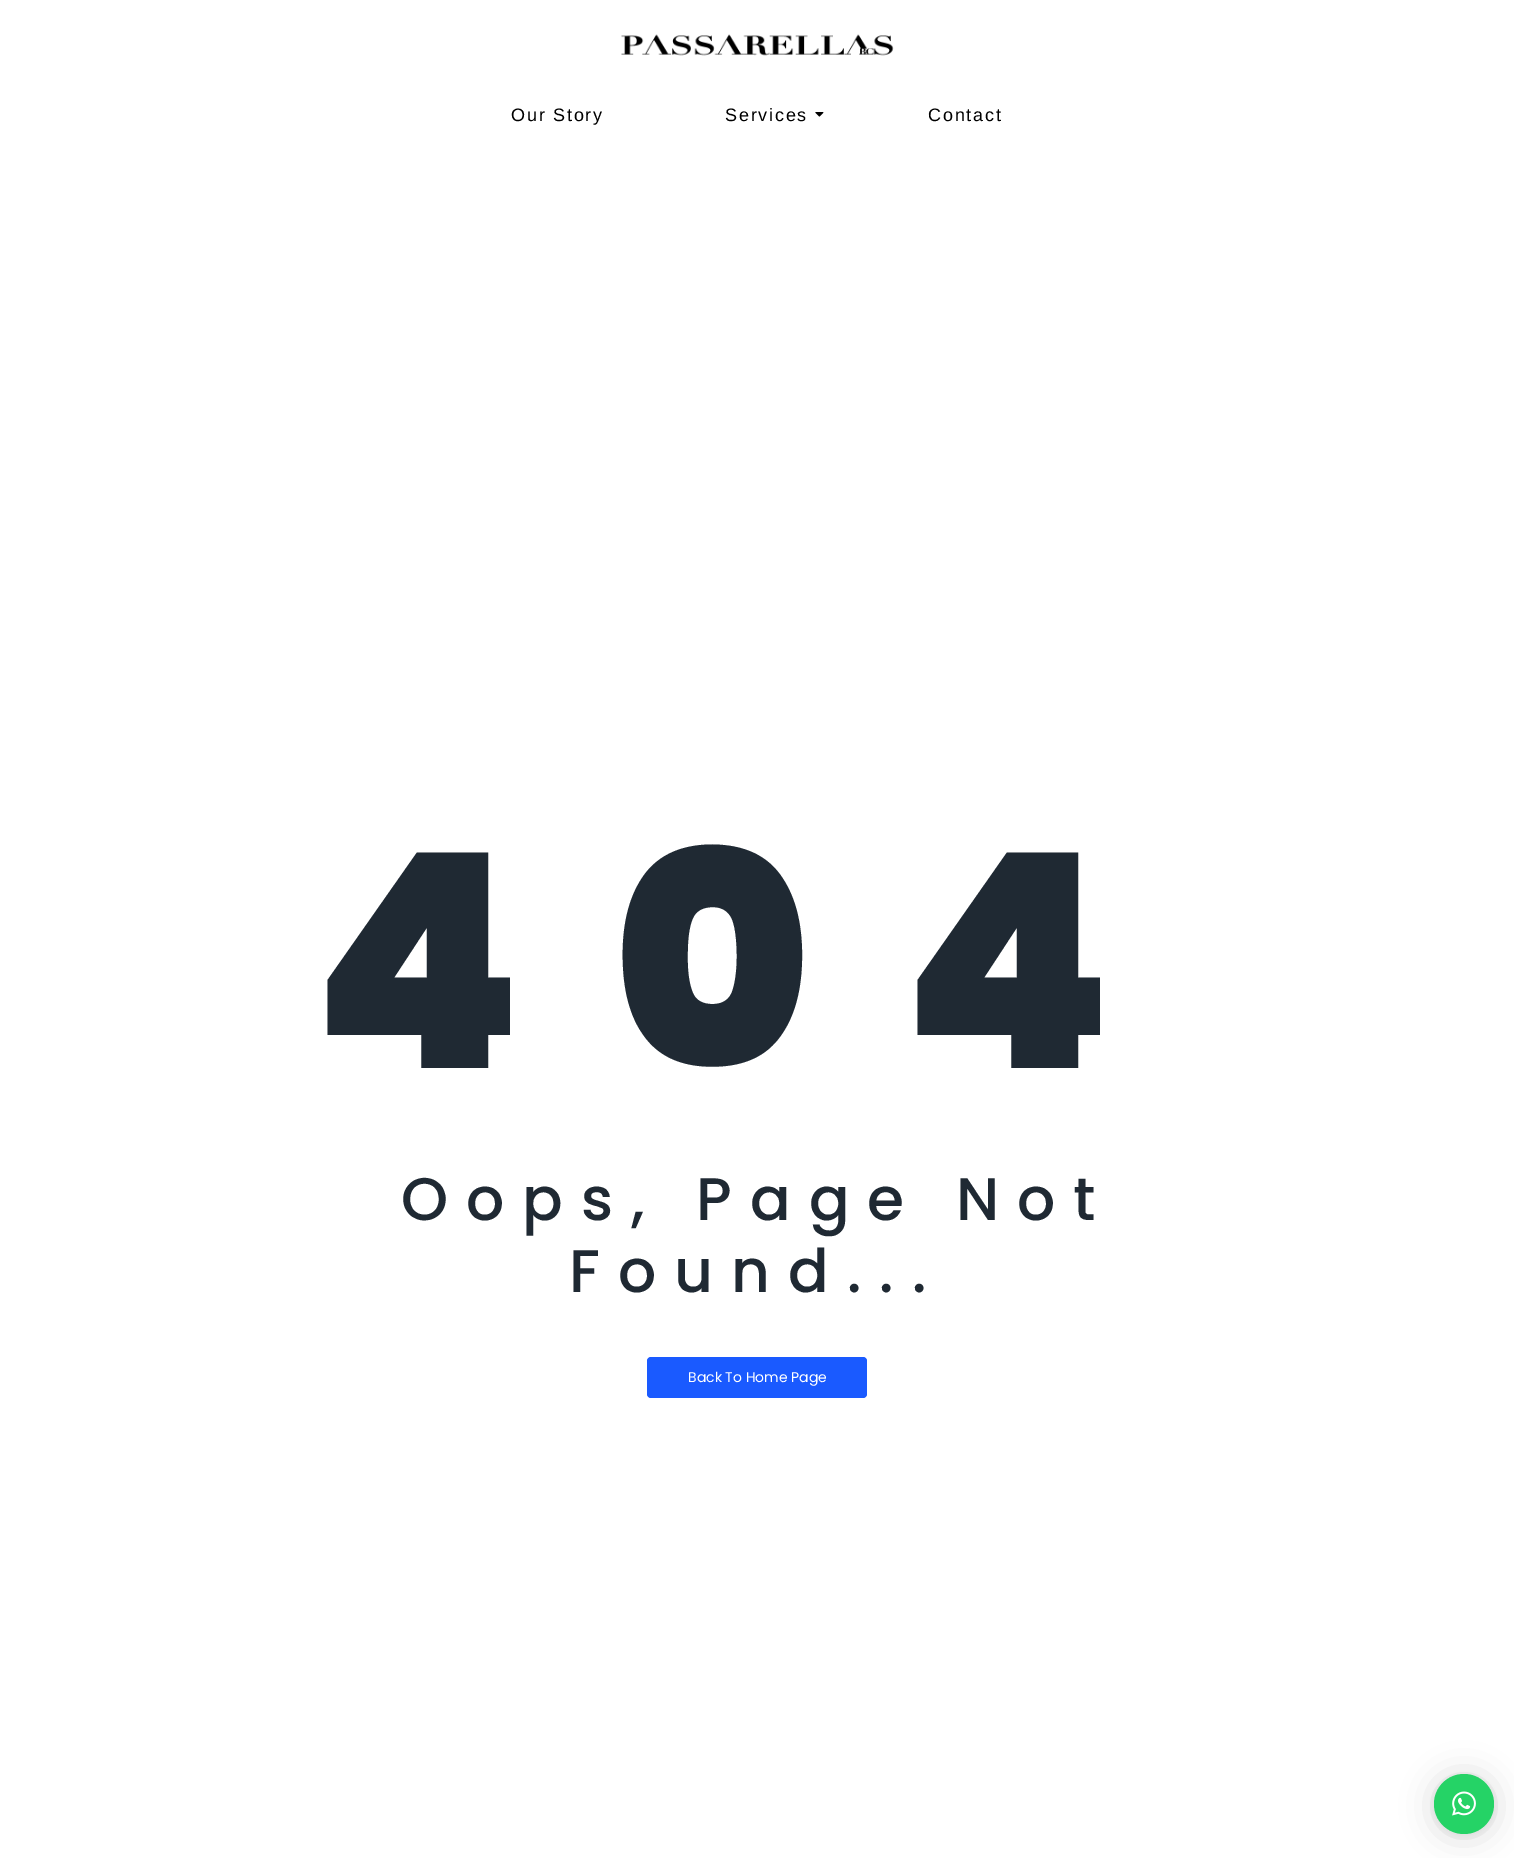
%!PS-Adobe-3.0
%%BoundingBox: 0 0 1514 1858
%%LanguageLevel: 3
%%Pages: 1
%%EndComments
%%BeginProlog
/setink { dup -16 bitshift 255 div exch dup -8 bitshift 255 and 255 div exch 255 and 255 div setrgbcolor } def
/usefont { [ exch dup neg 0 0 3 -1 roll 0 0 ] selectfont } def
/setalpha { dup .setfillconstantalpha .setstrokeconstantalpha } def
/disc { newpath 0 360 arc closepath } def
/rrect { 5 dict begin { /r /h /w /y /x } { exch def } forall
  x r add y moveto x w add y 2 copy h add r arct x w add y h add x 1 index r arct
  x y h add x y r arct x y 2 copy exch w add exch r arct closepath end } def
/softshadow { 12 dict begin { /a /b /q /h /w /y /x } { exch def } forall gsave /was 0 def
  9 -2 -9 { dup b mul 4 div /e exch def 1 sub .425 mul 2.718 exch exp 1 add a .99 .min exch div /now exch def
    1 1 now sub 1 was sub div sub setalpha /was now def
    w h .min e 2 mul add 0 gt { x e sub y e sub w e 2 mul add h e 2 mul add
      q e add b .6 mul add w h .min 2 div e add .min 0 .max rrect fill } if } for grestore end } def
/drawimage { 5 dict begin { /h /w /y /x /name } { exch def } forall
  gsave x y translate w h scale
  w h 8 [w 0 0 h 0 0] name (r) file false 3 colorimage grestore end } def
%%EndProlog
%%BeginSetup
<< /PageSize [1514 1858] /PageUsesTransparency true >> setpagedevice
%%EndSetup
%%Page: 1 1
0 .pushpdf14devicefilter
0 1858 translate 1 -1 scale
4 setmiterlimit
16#FFFFFF setink
0 0 1514 1858 rectfill
(img1.raw) 621 34 273 22 drawimage
/LiberationSans-Regular 18 usefont
16#000000 setink
511 121 moveto 1.75 0 (Our Story) ashow
725 121 moveto 1.75 0 (Services) ashow
(img2.raw) 815 112 9 5 drawimage
928 121 moveto 1.75 0 (Contact) ashow
/Poppins-Black 300 usefont
16#1F2933 setink
312 1068 moveto 90 0 (404) ashow
/Poppins-Medium 60 usefont
401 1220 moveto 18 0 (Oops, Page Not) ashow
569 1292 moveto 18 0 (Found...) ashow
16#1A5AFF setink
647 1357 220 41 4 rrect fill
/Poppins-Regular 14 usefont
16#FFFFFF setink
688 1382 moveto (Back To Home Page) show
16#000000 setink
1434 1776 60 60 30 16 0.16 softshadow
1434 1775 60 60 30 3 0.06 softshadow
16#25D366 setink
1464 1804 30 disc fill
(img3.raw) 1452 1791 24 25 drawimage
.poppdf14devicefilter showpage
%%EOF
